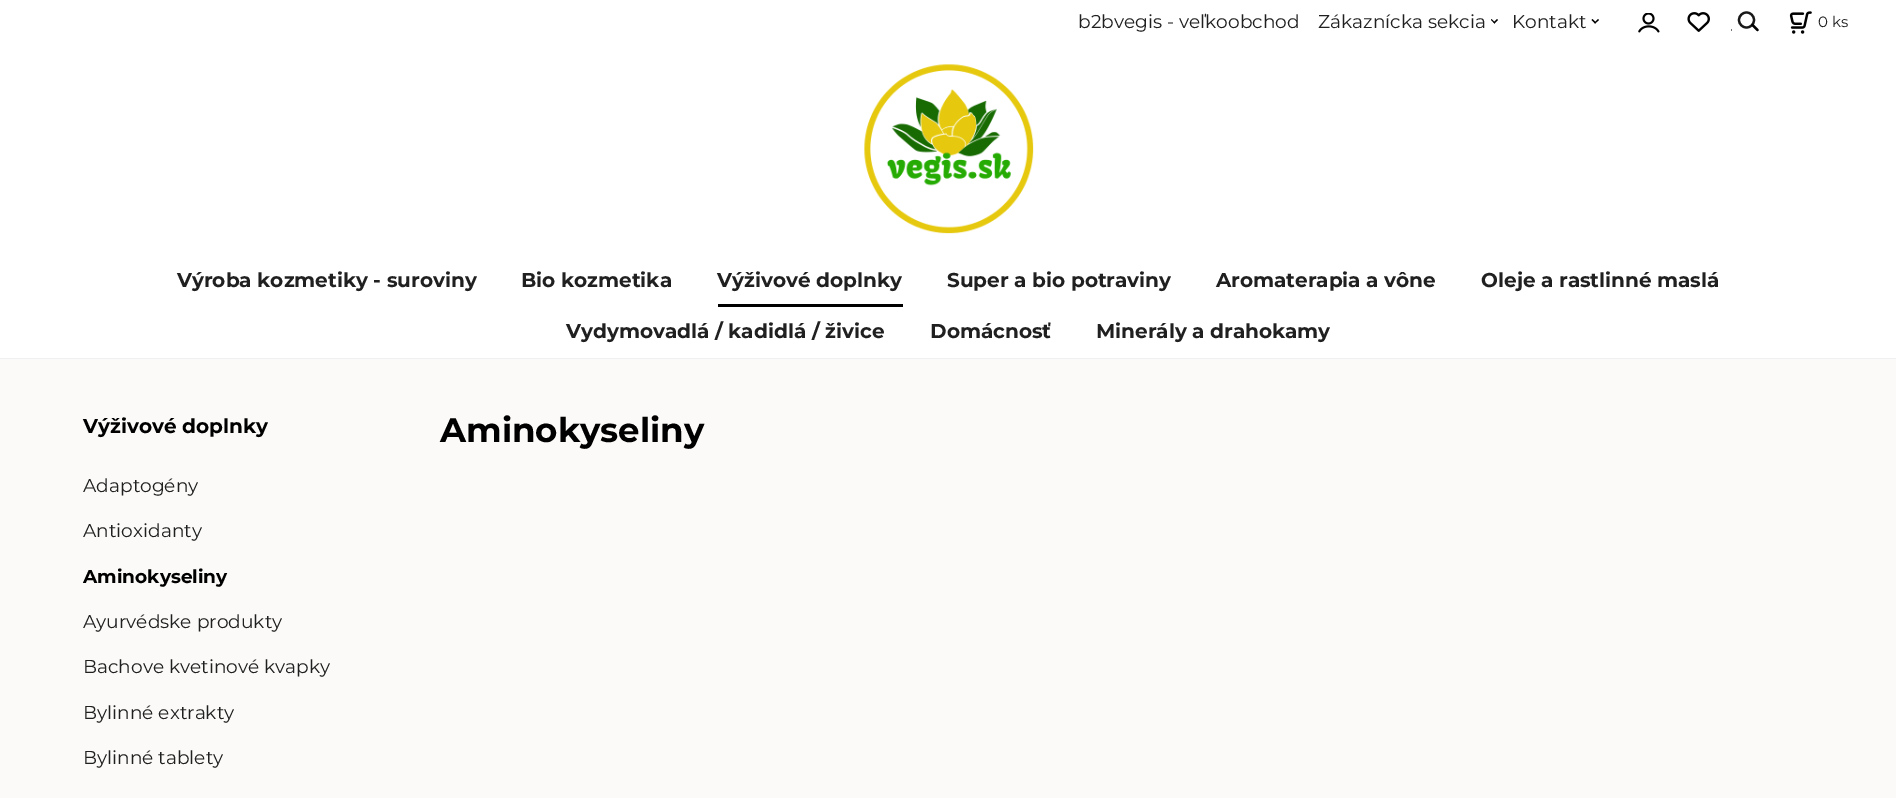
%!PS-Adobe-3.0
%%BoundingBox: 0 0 1896 798
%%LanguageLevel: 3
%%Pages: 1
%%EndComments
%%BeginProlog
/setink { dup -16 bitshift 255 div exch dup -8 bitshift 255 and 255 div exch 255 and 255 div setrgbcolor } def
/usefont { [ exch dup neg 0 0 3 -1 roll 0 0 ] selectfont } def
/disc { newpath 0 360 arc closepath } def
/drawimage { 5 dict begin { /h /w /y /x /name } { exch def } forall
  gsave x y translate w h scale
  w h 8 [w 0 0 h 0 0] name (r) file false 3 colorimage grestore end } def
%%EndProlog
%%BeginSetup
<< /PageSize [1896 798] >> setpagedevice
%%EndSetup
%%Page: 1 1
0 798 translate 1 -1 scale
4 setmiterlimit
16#FBFAF8 setink
0 0 1896 798 rectfill
16#FFFFFF setink
0 0 1896 358 rectfill
(img1.raw) 864 64 170 170 drawimage
/Montserrat-Regular 18.6 usefont
16#202020 setink
1078 28 moveto (b2bvegis - veľkoobchod) show
1318 28 moveto (Zákaznícka sekcia) show
16#000000 setink
1493.5 22.5 moveto 1497 19 lineto 1498 20 lineto 1494.5 23.5 lineto closepath fill
1491 20 moveto 1491.5 19 lineto 1495 22.5 lineto 1494.5 23.5 lineto closepath fill
16#202020 setink
1512 28 moveto (Kontakt) show
16#000000 setink
1594.5 22.5 moveto 1598 19 lineto 1599 20 lineto 1595 23.5 lineto closepath fill
1591.5 20 moveto 1592.5 19 lineto 1596 22.5 lineto 1595 23.5 lineto closepath fill
(img2.raw) 1638 13 22 20 drawimage
(img3.raw) 1687 12 23 20 drawimage
16#191919 setink
2.2 setlinewidth
1746.5 20 7.5 disc stroke
16#000000 setink
1 setlinecap
1752.5 25 moveto 1757.5 30 lineto stroke
gsave
1731 10 28 23 rectclip
1.3 setlinewidth
1725.5 25 moveto 1731 30 lineto stroke
grestore
(img4.raw) 1789 11 23 23 drawimage
/Montserrat-Regular 15 usefont
16#202020 setink
1818 27 moveto (0 ks) show
16#F0F0F0 setink
0 358 1896 1 rectfill
/Montserrat-Bold 20 usefont
16#202020 setink
177 287 moveto (Výroba kozmetiky - suroviny) show
521 287 moveto (Bio kozmetika) show
16#000000 setink
718 304 185 3 rectfill
16#202020 setink
[
    [(Výživové doplnky) 717 287]
    [(Super a bio potraviny) 947 287]
    [(Aromaterapia a vône) 1216 287]
    [(Oleje a rastlinné maslá) 1481 287]
    [(Vydymovadlá / kadidlá / živice) 566 338]
    [(Domácnosť) 930 338]
    [(Minerály a drahokamy) 1096 338]
] { aload pop moveto show } forall
16#000000 setink
83 433 moveto (Výživové doplnky) show
/Montserrat-Regular 18.6 usefont
16#202020 setink
83 492 moveto (Adaptogény) show
83 537 moveto (Antioxidanty) show
/Montserrat-Bold 18.6 usefont
16#000000 setink
83 583 moveto (Aminokyseliny) show
/Montserrat-Regular 18.6 usefont
16#202020 setink
[
    [(Ayurvédske produkty) 83 628]
    [(Bachove kvetinové kvapky) 83 673]
    [(Bylinné extrakty) 83 719]
    [(Bylinné tablety) 83 764]
] { aload pop moveto show } forall
/Montserrat-Bold 34 usefont
16#000000 setink
440 442 moveto (Aminokyseliny) show
showpage
%%EOF
